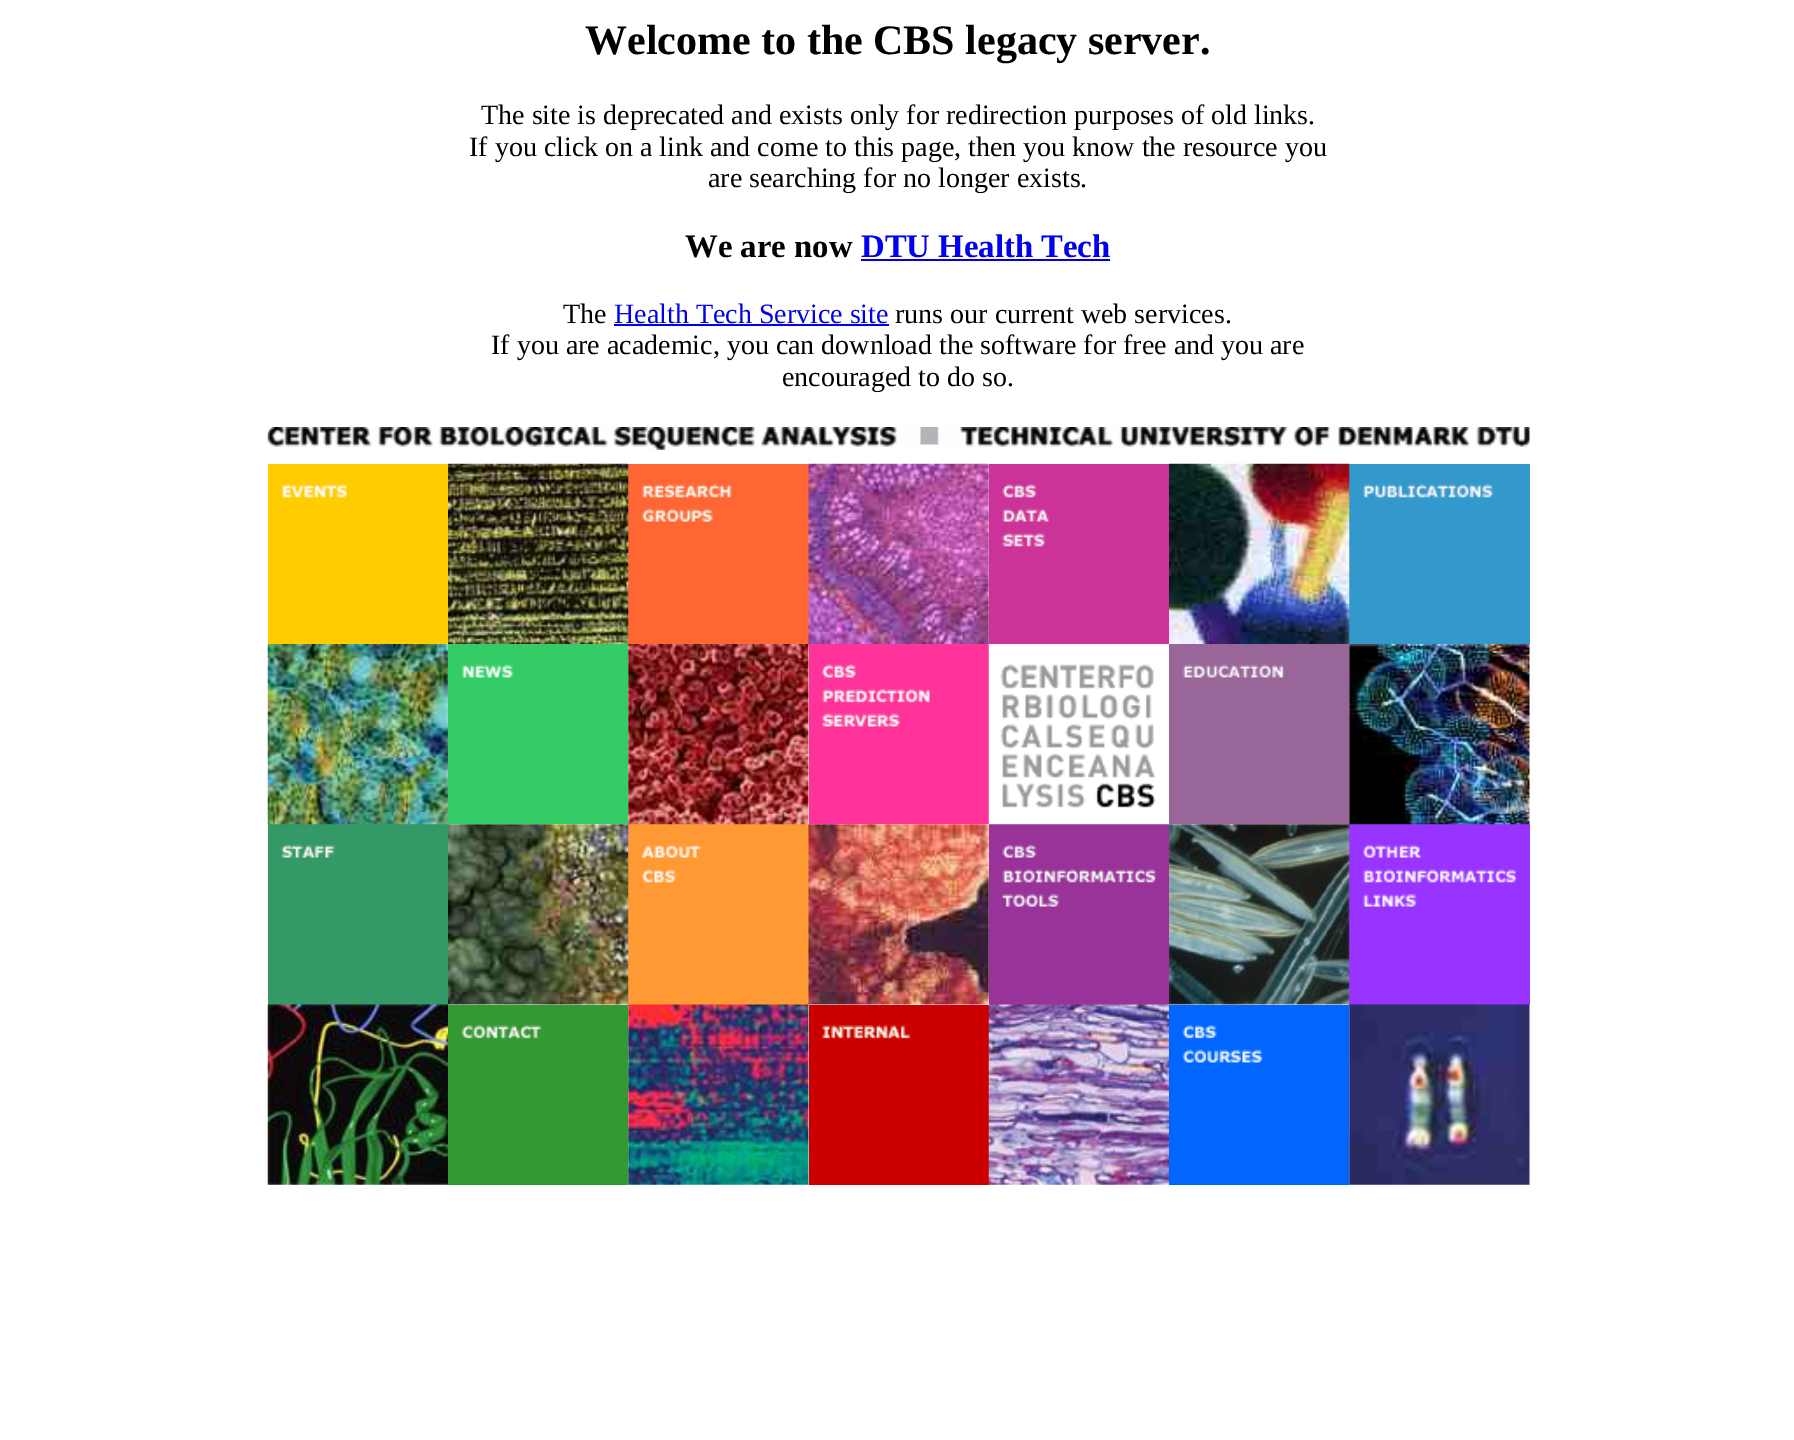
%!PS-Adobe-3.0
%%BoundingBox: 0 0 1794 1440
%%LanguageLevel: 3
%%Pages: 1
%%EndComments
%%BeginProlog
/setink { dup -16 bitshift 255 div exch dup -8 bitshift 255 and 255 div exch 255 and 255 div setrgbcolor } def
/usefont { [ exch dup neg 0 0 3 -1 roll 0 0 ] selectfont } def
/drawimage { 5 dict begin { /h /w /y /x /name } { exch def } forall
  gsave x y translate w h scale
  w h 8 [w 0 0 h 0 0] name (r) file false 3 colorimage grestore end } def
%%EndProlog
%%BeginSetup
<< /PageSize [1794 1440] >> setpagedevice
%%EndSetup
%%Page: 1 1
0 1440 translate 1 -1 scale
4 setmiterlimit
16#FFFFFF setink
0 0 1794 1440 rectfill
/LiberationSerif-Bold 42 usefont
16#000000 setink
585 54 moveto (Welcome to the CBS legacy server.) show
/LiberationSerif-Regular 28 usefont
[
    [(The site is deprecated and exists only for redirection purposes of old links.) 481 124]
    [(If you click on a link and come to this page, then you know the resource you) 469 156]
    [(are searching for no longer exists.) 708 187]
] { aload pop moveto show } forall
/LiberationSerif-Bold 32.75 usefont
685 257 moveto (We are now) show
16#0000EE setink
861 257 moveto (DTU Health Tech) show
861 259 249 2 rectfill
/LiberationSerif-Regular 28 usefont
16#000000 setink
563 323 moveto (The) show
16#0000EE setink
614 323 moveto (Health Tech Service site) show
614 324 275 2 rectfill
16#000000 setink
[
    [(runs our current web services.) 895 323]
    [(If you are academic, you can download the software for free and you are) 491 354]
    [(encouraged to do so.) 782 386]
] { aload pop moveto show } forall
(img1.raw) 267 427 1263 23 drawimage
16#FFCC00 setink
268 464 180 180 rectfill
(img2.raw) 281 484 66 14 drawimage
16#FF6633 setink
628 464 181 180 rectfill
(img3.raw) 448 463 181 181 drawimage
(img4.raw) 641 484 91 38 drawimage
(img5.raw) 808 463 181 181 drawimage
16#CC3399 setink
989 464 180 180 rectfill
(img6.raw) 1002 484 47 63 drawimage
16#3399CC setink
1349 464 181 180 rectfill
(img7.raw) 1169 463 181 181 drawimage
(img8.raw) 1363 484 131 14 drawimage
16#339966 setink
268 824 180 181 rectfill
(img9.raw) 267 644 181 181 drawimage
16#33CC66 setink
448 644 180 180 rectfill
(img10.raw) 461 664 53 14 drawimage
16#FF9933 setink
628 824 181 181 rectfill
(img11.raw) 628 644 181 181 drawimage
16#FF3399 setink
809 644 180 180 rectfill
(img12.raw) 822 664 108 63 drawimage
16#993399 setink
989 824 180 181 rectfill
(img13.raw) 988 644 181 181 drawimage
16#996699 setink
1169 644 180 180 rectfill
(img14.raw) 1182 664 102 14 drawimage
16#9933FF setink
1349 824 181 181 rectfill
(img15.raw) 1349 644 181 181 drawimage
(img16.raw) 281 844 54 14 drawimage
(img17.raw) 448 824 181 181 drawimage
(img18.raw) 641 844 60 39 drawimage
(img19.raw) 808 824 181 181 drawimage
(img20.raw) 1002 844 154 63 drawimage
(img21.raw) 1169 824 181 181 drawimage
(img22.raw) 1362 844 154 63 drawimage
(img23.raw) 267 1004 181 181 drawimage
16#339933 setink
448 1005 180 180 rectfill
(img24.raw) 461 1025 81 14 drawimage
(img25.raw) 628 1004 181 181 drawimage
16#CC0000 setink
809 1005 180 180 rectfill
(img26.raw) 822 1025 89 14 drawimage
(img27.raw) 988 1004 181 181 drawimage
16#0066FF setink
1169 1005 180 180 rectfill
(img28.raw) 1182 1025 81 38 drawimage
(img29.raw) 1349 1004 181 181 drawimage
showpage
%%EOF
